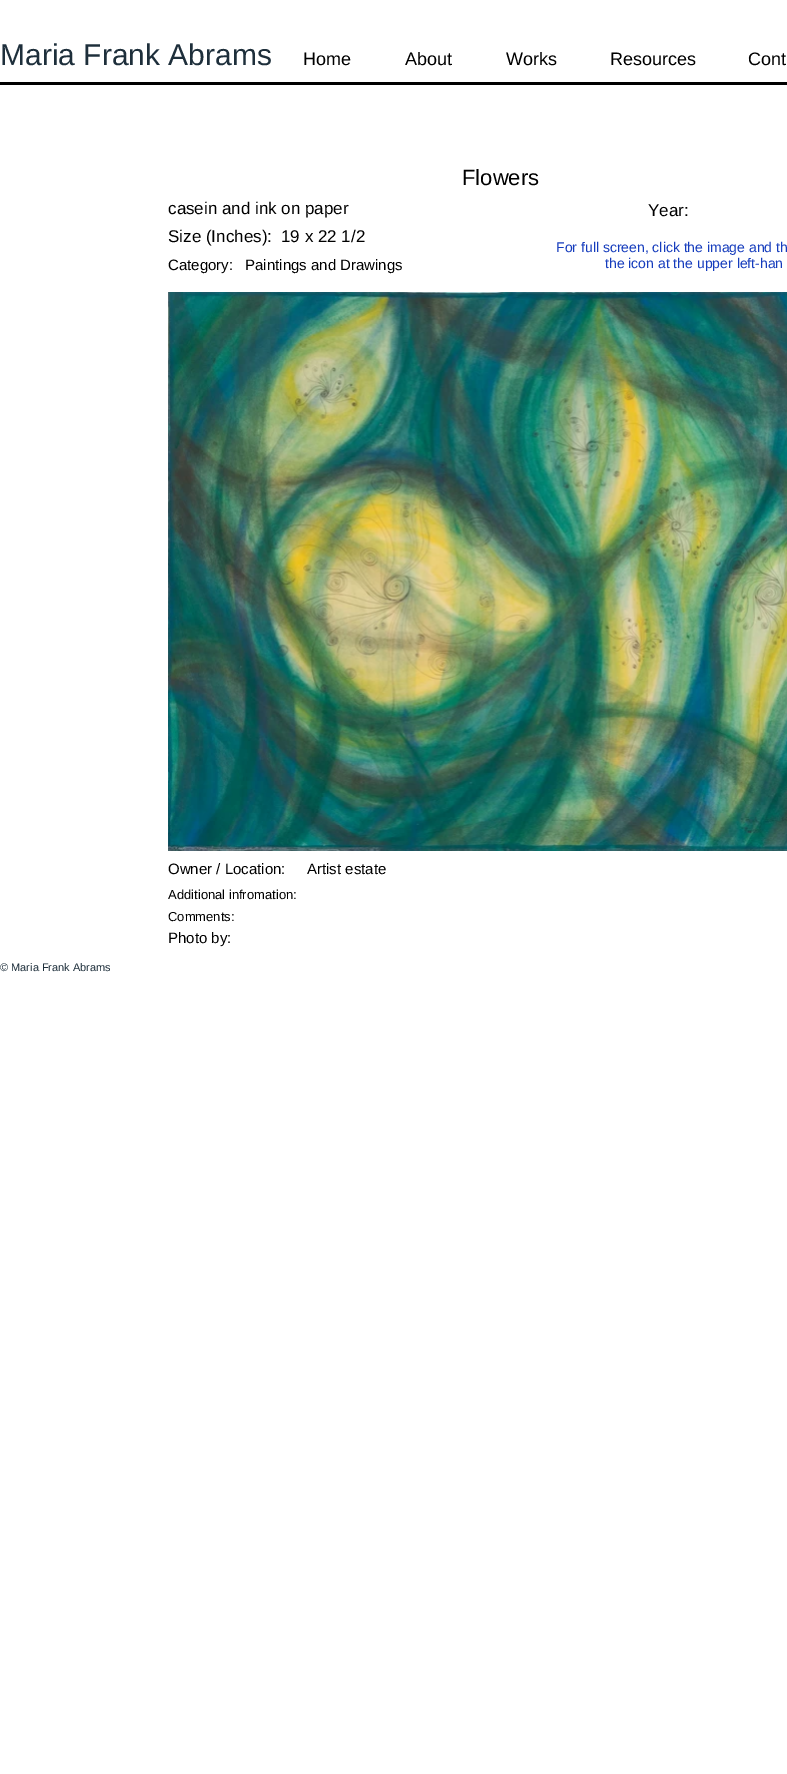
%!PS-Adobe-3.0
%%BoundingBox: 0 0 787 1774
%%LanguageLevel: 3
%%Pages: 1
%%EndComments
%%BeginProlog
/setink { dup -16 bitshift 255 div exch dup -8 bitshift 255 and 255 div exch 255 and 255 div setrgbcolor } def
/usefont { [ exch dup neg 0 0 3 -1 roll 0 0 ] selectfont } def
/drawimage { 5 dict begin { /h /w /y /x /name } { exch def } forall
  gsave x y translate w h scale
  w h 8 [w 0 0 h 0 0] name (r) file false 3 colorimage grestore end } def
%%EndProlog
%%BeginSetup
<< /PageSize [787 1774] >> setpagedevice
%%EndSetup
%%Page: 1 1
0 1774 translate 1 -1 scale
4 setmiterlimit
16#FFFFFF setink
0 0 787 1774 rectfill
/LiberationSans-Regular 30 usefont
16#1E2F3B setink
0 65 moveto (Maria Frank Abrams) show
/LiberationSans-Regular 18 usefont
16#000000 setink
[
    [(Home) 303 65]
    [(About) 405 65]
    [(Works) 506 65]
    [(Resources) 610 65]
    [(Cont) 748 65]
] { aload pop moveto show } forall
0 82 787 3 rectfill
/LiberationSans-Regular 22 usefont
462 185 moveto (Flowers) show
/LiberationSans-Regular 17 usefont
[
    [(casein and ink on paper) 168 214]
    [(Year:) 648 216]
    [(Size \(Inches\):) 168 242]
    [(19 x 22 1/2) 281 242]
] { aload pop moveto show } forall
/LiberationSans-Regular 15 usefont
168 270 moveto (Category:) show
245 270 moveto (Paintings and Drawings) show
/LiberationSans-Regular 14 usefont
16#153CBD setink
556 252 moveto (For full screen, click the image and th) show
605 268 moveto (the icon at the upper left-han) show
(img1.raw) 168 292 619 559 drawimage
/LiberationSans-Regular 15 usefont
16#000000 setink
168 874 moveto (Owner / Location:) show
307 874 moveto (Artist estate) show
/LiberationSans-Regular 13 usefont
168 899 moveto (Additional infromation:) show
168 921 moveto (Comments:) show
/LiberationSans-Regular 15 usefont
168 943 moveto (Photo by:) show
/LiberationSans-Regular 11 usefont
16#1E2F3B setink
0 971 moveto (© Maria Frank Abrams) show
showpage
%%EOF
